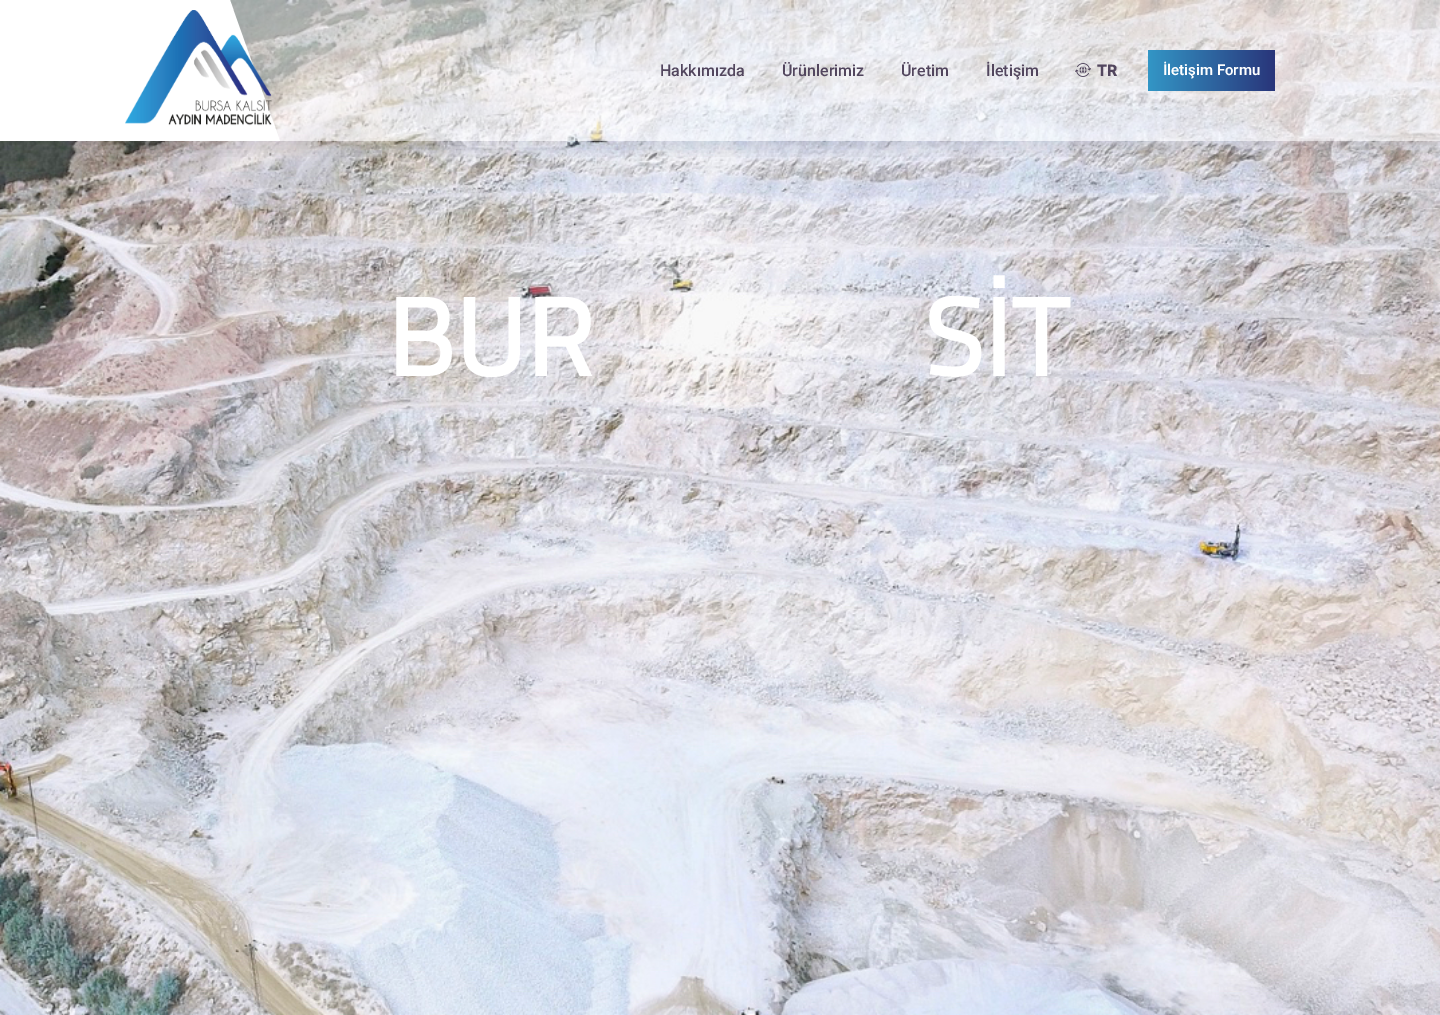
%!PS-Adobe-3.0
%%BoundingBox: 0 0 1440 1015
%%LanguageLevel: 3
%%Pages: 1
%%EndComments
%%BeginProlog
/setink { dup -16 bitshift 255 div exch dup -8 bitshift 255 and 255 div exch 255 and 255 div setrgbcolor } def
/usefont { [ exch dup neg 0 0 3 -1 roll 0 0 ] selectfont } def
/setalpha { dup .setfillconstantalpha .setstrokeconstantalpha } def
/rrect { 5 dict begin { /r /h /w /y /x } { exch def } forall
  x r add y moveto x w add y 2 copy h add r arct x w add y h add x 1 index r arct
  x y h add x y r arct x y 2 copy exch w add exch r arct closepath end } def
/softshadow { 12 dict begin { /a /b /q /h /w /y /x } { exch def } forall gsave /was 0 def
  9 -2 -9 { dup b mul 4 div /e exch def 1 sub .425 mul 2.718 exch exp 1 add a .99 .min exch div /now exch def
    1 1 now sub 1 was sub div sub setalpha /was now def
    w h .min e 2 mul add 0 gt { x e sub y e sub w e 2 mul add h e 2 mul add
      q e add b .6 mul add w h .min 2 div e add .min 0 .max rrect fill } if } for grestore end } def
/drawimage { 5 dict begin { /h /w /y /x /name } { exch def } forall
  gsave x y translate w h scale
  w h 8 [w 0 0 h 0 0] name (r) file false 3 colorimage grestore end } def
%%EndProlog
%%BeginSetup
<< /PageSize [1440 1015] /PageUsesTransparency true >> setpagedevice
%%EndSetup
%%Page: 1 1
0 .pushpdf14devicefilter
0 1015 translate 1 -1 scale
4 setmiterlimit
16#FFFFFF setink
0 0 1440 1015 rectfill
(img3.raw) 0 0 1440 1015 drawimage
gsave
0 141 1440 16 rectclip
16#191919 setink
0 10 1440 141 0 7.5 0.1 softshadow
grestore
0.5 setalpha
230 0 1210 141 rectfill
1 setalpha
0 0 moveto 0 141 lineto 280 141 lineto 230 0 lineto closepath fill
(img1.raw) 125 10 147 116 drawimage
/Roboto-Medium 16 usefont
16#52465E setink
[
    [(Hakkımızda) 660 76]
    [(Ürünlerimiz) 782 76]
    [(Üretim) 901 76]
    [(İletişim) 986 76]
] { aload pop moveto show } forall
(img2.raw) 1075 63 16 14 drawimage
/Roboto-Black 16 usefont
1097 76 moveto (TR) show
gsave 1148 50 moveto 1275 50 lineto 1275 91 lineto 1148 91 lineto closepath clip newpath
<< /ShadingType 2 /ColorSpace /DeviceRGB /Coords [1148 71 1275 71] /Extend [true true] /Function << /FunctionType 2 /Domain [0 1] /C0 [0.2 0.588 0.776] /C1 [0.161 0.208 0.478] /N 1 >> >> shfill grestore
/Roboto-SemiBold 15 usefont
16#FFFFFF setink
1163 75 moveto (İletişim Formu) show
/TitilliumWeb-Bold 110 usefont
387 376 moveto (BUR) show
924 376 moveto (SİT) show
.poppdf14devicefilter showpage
%%EOF
